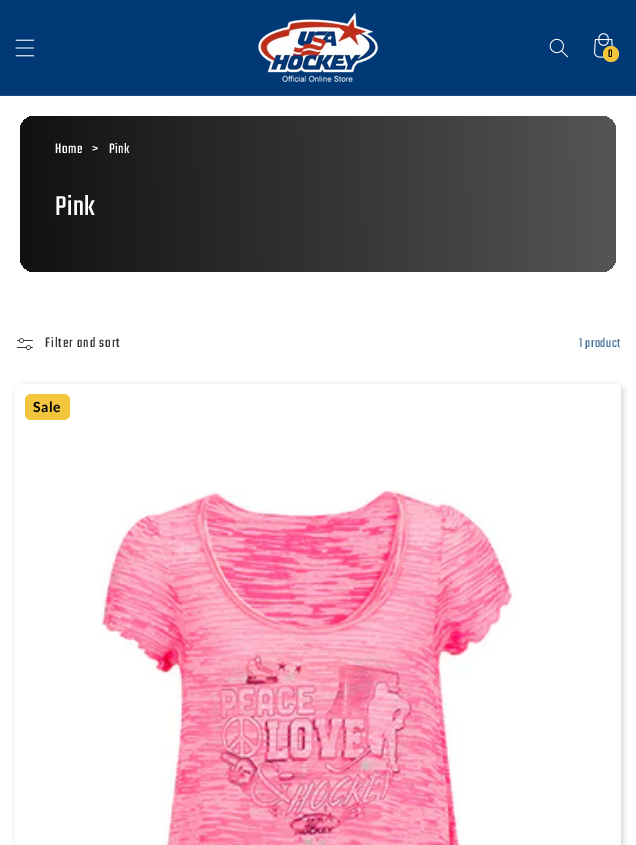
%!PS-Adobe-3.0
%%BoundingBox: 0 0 636 845
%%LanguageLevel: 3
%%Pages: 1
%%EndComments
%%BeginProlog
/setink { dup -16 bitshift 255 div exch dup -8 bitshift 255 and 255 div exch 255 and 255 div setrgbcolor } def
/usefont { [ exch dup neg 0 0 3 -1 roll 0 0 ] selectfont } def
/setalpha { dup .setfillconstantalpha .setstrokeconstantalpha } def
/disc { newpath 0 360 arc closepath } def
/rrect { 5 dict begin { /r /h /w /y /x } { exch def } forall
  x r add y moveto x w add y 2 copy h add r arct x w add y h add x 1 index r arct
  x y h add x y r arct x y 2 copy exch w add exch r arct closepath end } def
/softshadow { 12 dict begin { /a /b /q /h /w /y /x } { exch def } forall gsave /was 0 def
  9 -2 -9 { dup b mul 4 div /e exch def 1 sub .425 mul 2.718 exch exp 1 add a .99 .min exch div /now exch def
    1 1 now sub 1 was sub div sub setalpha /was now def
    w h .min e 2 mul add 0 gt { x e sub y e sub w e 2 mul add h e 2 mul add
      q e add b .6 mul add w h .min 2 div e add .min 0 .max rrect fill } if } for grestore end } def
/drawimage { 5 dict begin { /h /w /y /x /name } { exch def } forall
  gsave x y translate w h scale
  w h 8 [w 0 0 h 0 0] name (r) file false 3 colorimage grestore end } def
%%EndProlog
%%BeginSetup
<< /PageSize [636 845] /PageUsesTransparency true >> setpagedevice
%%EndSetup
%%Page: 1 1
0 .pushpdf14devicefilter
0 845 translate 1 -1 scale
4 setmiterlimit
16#FFFFFF setink
0 0 636 845 rectfill
16#003976 setink
0 0 636 95 rectfill
16#144981 setink
0 95 636 1 rectfill
(img1.raw) 15 39 20 18 drawimage
(img2.raw) 258 12 120 70 drawimage
(img3.raw) 549 38 19 20 drawimage
(img4.raw) 594 33 19 25 drawimage
16#F2C53D setink
611 54 8 disc fill
/Teko-Regular 12 usefont
16#000000 setink
608 57 moveto 0.5 0 (0) ashow
gsave 20 116 596 156 15 rrect clip newpath
<< /ShadingType 2 /ColorSpace /DeviceRGB /Coords [617 189 19 199] /Extend [true true] /Function << /FunctionType 2 /Domain [0 1] /C0 [0.333 0.333 0.333] /C1 [0.067 0.067 0.067] /N 1 >> >> shfill grestore
/Teko-Regular 15 usefont
16#FFFFFF setink
55 153 moveto 0.5 0 (Home) ashow
92 153 moveto 0.5 0 (>) ashow
109 153 moveto 0.5 0 (Pink) ashow
/Teko-Regular 30 usefont
55 215 moveto 0.5 0 (Pink) ashow
(img5.raw) 17 338 16 12 drawimage
/Teko-Regular 15 usefont
16#363636 setink
45 347 moveto 1 0 (Filter and sort) ashow
/Teko-Regular 14 usefont
16#4D749F setink
579 347 moveto 0.5 0 (1 product) ashow
16#121212 setink
17 386 606 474 6 3 0.19 softshadow
16#FFFFFF setink
21 384 moveto 615 384 lineto 618.5 384 621 386.5 621 390 curveto 621 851 lineto 15 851 lineto 15 390 lineto 15 386.5 17.5 384 21 384 curveto closepath fill
16#F2C53D setink
25 394 45 26 6 rrect fill
/Lato-Bold 14 usefont
16#000000 setink
33 412 moveto 0.5 0 (Sale) ashow
(img6.raw) 101 490 413 355 drawimage
.poppdf14devicefilter showpage
%%EOF
